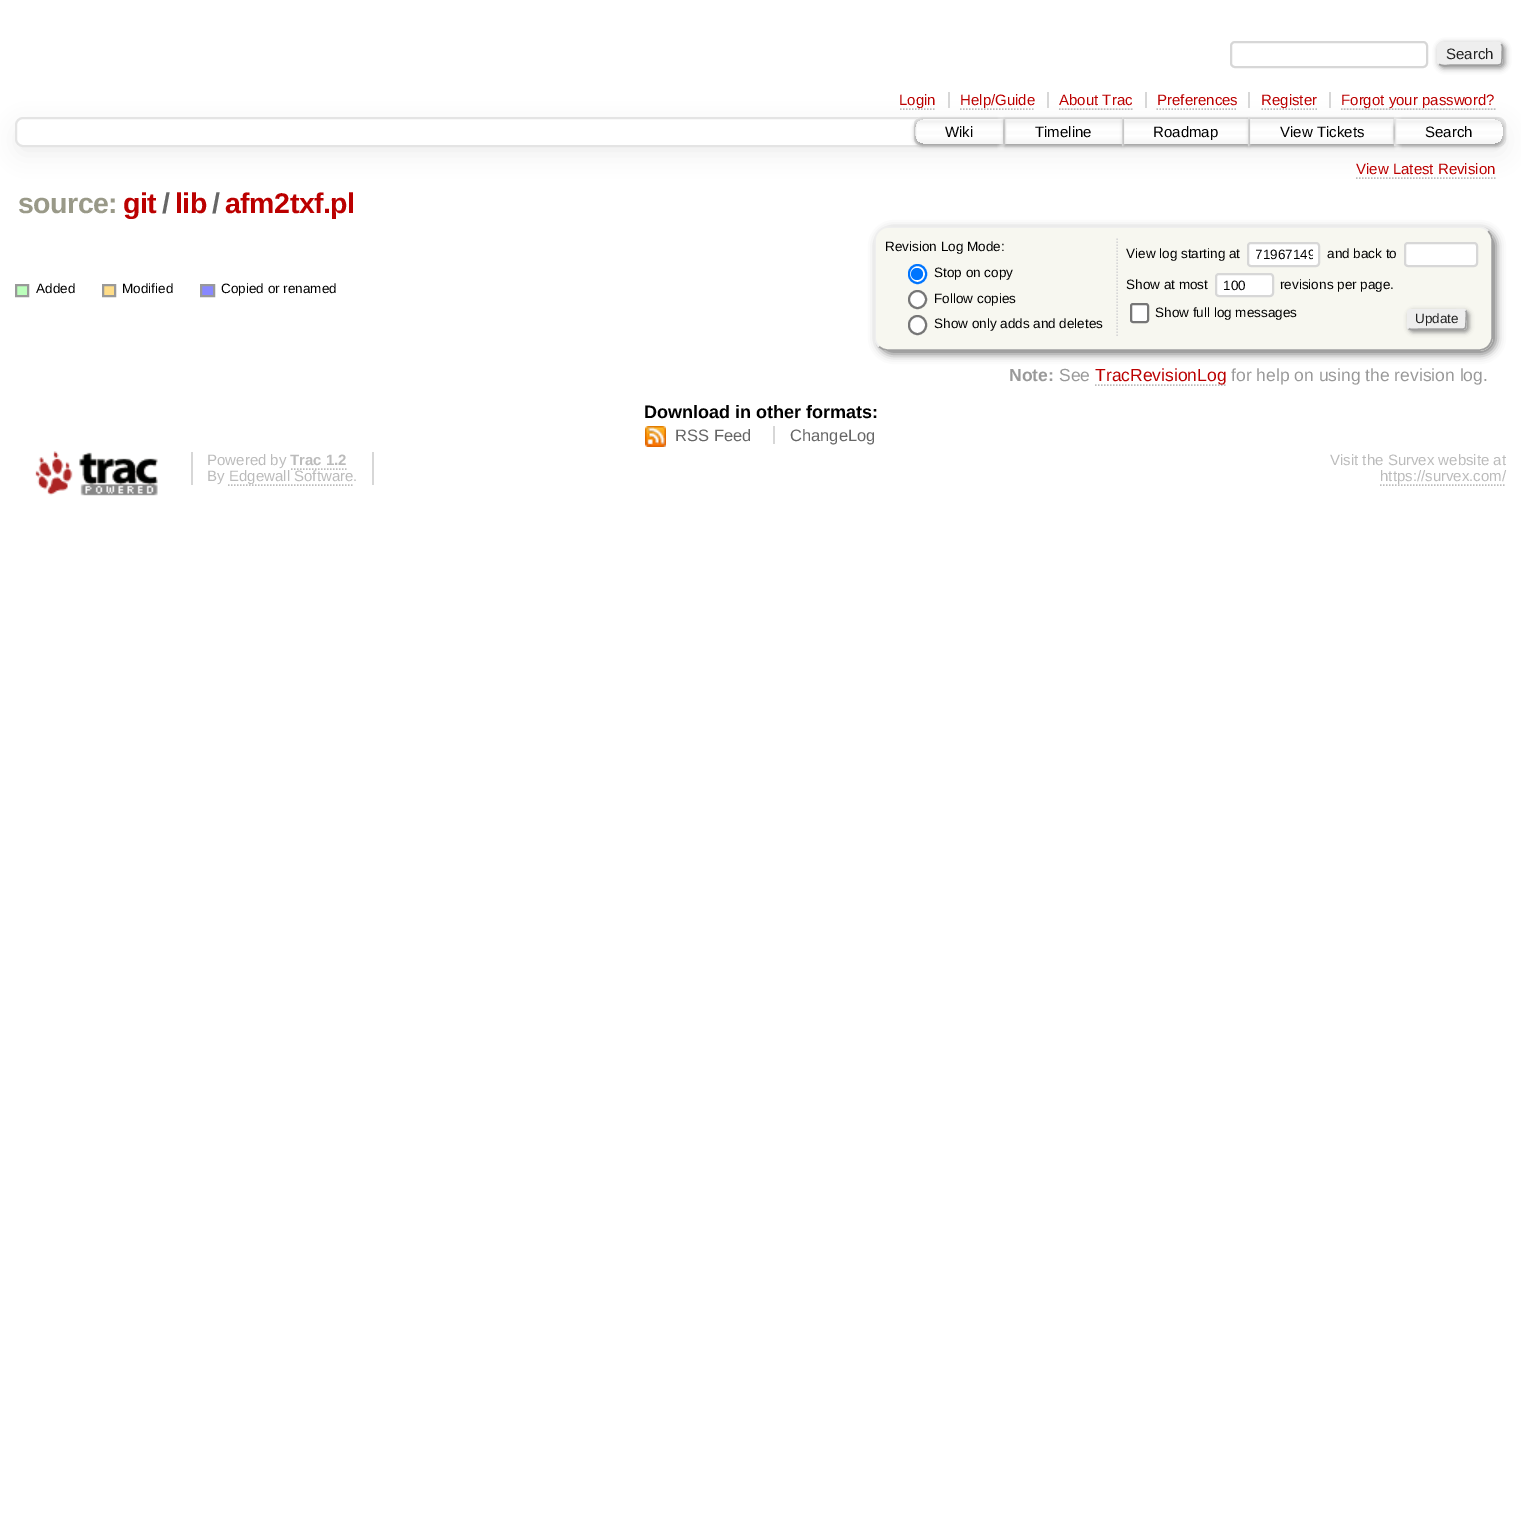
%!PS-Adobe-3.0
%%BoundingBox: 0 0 1521 1538
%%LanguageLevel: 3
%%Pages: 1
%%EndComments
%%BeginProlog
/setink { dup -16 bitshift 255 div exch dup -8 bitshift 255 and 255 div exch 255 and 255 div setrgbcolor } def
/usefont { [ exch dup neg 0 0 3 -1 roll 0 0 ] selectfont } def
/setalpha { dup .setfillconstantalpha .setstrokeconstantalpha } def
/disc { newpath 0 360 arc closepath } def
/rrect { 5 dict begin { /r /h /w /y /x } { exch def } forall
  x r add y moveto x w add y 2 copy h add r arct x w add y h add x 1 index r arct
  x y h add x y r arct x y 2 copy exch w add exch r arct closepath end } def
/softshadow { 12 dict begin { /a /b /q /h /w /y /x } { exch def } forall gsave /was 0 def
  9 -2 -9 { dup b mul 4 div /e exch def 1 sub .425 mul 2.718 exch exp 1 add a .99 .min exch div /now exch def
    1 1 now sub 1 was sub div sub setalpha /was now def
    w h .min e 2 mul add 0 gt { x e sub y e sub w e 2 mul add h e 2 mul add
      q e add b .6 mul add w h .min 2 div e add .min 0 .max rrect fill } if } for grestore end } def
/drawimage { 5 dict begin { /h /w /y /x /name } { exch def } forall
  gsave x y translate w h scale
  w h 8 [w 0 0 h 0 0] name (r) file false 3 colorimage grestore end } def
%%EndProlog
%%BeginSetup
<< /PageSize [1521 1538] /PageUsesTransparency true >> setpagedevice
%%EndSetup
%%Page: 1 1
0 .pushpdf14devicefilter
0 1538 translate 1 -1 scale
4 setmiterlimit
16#FFFFFF setink
0 0 1521 1538 rectfill
16#D7D7D7 setink
2 setlinewidth
1231 42 196 25 4 rrect stroke
16#888888 setink
1439 44 66 24 5 3 1 softshadow
16#EEEEEE setink
1437 42 66 24 5 rrect fill
16#9F9F9F setink
1.5 setlinewidth
1501 44 moveto 1503.5 46 1502 51 1502 54 curveto 1502 67 1503 65 1489 65 curveto 1451 65 lineto 1450.5 65 1441.5 67 1439 64 curveto stroke
16#EEEEEE setink
1439 64 moveto 1436.5 62 1438 57 1438 54 curveto 1438 41 1437 43 1451 43 curveto 1489 43 lineto 1489.5 43 1498.5 41 1501 44 curveto stroke
/LiberationSans-Regular 15 usefont
16#222222 setink
1446 59 moveto (Search) show
gsave
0 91 moveto 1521 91 lineto 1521 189 lineto 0 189 lineto closepath 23 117 moveto 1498 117 lineto 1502.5 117 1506 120.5 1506 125 curveto 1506 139 lineto 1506 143.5 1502.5 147 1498 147 curveto 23 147 lineto 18.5 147 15 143.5 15 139 curveto 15 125 lineto 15 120.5 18.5 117 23 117 curveto closepath eoclip newpath
16#EEEEEE setink
15 125 1491 30 8 11 1 softshadow
grestore
16#D7D7D7 setink
948 92 2 16 rectfill
16#BBBBBB setink
[1.5 1.5] 0 setdash
900 109 moveto 936 109 lineto stroke
16#BB0000 setink
899 105 moveto (Login) show
16#D7D7D7 setink
1047 92 2 16 rectfill
16#BBBBBB setink
960 109 moveto 1035 109 lineto stroke
16#BB0000 setink
960 105 moveto (Help/Guide) show
16#D7D7D7 setink
1145 92 2 16 rectfill
16#BB0000 setink
1059 105 moveto (About Trac) show
16#BBBBBB setink
1059 109 moveto 1132.5 109 lineto stroke
16#D7D7D7 setink
1248 92 2 16 rectfill
16#BB0000 setink
1157 105 moveto (Preferences) show
16#BBBBBB setink
1156.5 109 moveto 1237.5 109 lineto stroke
16#D7D7D7 setink
1329 92 2 16 rectfill
16#BBBBBB setink
1261.5 109 moveto 1317 109 lineto stroke
16#BB0000 setink
1261 105 moveto (Register) show
16#BBBBBB setink
1341 109 moveto 1495.5 109 lineto stroke
16#BB0000 setink
1341 105 moveto (Forgot your password?) show
16#E4E4E4 setink
2 setlinewidth
[] 0 setdash
16 118 1489 28 7 rrect stroke
16#FFFFFF setink
922 117 moveto 1005 117 lineto 1005 146 lineto 922 146 lineto 917.5 146 914 142.5 914 138 curveto 914 125 lineto 914 120.5 917.5 117 922 117 curveto closepath fill
(img1.raw) 914 120 89 25 drawimage
16#E4E4E4 setink
922 118 moveto 1004 118 lineto 1004 145 lineto 922 145 lineto 918 145 915 142 915 138 curveto 915 125 lineto 915 121 918 118 922 118 curveto closepath stroke
gsave
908 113 moveto 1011 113 lineto 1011 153 lineto 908 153 lineto closepath 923 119 moveto 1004 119 lineto 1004 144 lineto 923 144 lineto 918.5 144 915 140.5 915 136 curveto 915 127 lineto 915 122.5 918.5 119 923 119 curveto closepath eoclip newpath
16#999999 setink
915 120 89 26 8 2 1 softshadow
grestore
16#000000 setink
945 137 moveto (Wiki) show
16#FFFFFF setink
1006 123 2 20 rectfill
(img2.raw) 1003 120 119 24 drawimage
16#E4E4E4 setink
1005 118 118 27 rectstroke
gsave
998 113 moveto 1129 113 lineto 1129 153 lineto 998 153 lineto closepath 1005 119 moveto 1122 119 lineto 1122 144 lineto 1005 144 lineto closepath eoclip newpath
16#999999 setink
1005 120 117 26 0 2 1 softshadow
grestore
16#000000 setink
1035 137 moveto (Timeline) show
16#FFFFFF setink
1124 119 2 25 rectfill
(img3.raw) 1124 120 124 24 drawimage
16#E4E4E4 setink
1123 118 126 27 rectstroke
gsave
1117 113 moveto 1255 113 lineto 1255 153 lineto 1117 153 lineto closepath 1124 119 moveto 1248 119 lineto 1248 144 lineto 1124 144 lineto closepath eoclip newpath
16#999999 setink
1124 120 124 26 0 2 1 softshadow
grestore
16#000000 setink
1153 137 moveto (Roadmap) show
16#FFFFFF setink
1250 119 2 25 rectfill
(img4.raw) 1250 120 143 24 drawimage
16#E4E4E4 setink
1249 118 145 27 rectstroke
gsave
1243 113 moveto 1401 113 lineto 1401 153 lineto 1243 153 lineto closepath 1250 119 moveto 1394 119 lineto 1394 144 lineto 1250 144 lineto closepath eoclip newpath
16#999999 setink
1250 120 144 26 0 2 1 softshadow
grestore
16#000000 setink
1280 137 moveto (View Tickets) show
16#FFFFFF setink
1394 117 moveto 1497 117 lineto 1501.5 117 1505 120.5 1505 125 curveto 1505 138 lineto 1505 142.5 1501.5 146 1497 146 curveto 1394 146 lineto closepath fill
(img5.raw) 1396 120 108 24 drawimage
16#E4E4E4 setink
1395 118 moveto 1497 118 lineto 1501 118 1504 121 1504 125 curveto 1504 138 lineto 1504 142 1501 145 1497 145 curveto 1395 145 lineto closepath stroke
gsave
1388 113 moveto 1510 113 lineto 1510 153 lineto 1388 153 lineto closepath 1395 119 moveto 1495 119 lineto 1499.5 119 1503 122.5 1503 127 curveto 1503 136 lineto 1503 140.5 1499.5 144 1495 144 curveto 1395 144 lineto closepath eoclip newpath
16#999999 setink
1395 120 108 26 8 2 1 softshadow
grestore
16#000000 setink
1425 137 moveto (Search) show
16#BB0000 setink
1356 174 moveto (View Latest Revision) show
16#BBBBBB setink
1.5 setlinewidth
[1.5 1.5] 0 setdash
1356 178 moveto 1495.5 178 lineto stroke
/LiberationSans-Bold 28.5 usefont
16#999988 setink
18 213 moveto -0.5 0 (source:) ashow
16#BB0000 setink
123 213 moveto -0.5 0 (git) ashow
16#666666 setink
162 213 moveto -0.5 0 (/) ashow
16#BB0000 setink
175 213 moveto -0.5 0 (lib) ashow
16#666666 setink
212 213 moveto -0.5 0 (/) ashow
16#BB0000 setink
225 213 moveto -0.5 0 (afm2txf.pl) ashow
16#BBFFBB setink
16 285 moveto 28 285 lineto 28 296 lineto 16 296 lineto closepath gsave fill grestore
16#999999 setink
2 setlinewidth
[] 0 setdash
stroke
/LiberationSans-Regular 13.5 usefont
16#000000 setink
36 293 moveto (Added) show
16#FFDD88 setink
103 285 moveto 115 285 lineto 115 296 lineto 103 296 lineto closepath gsave fill grestore
16#999999 setink
stroke
16#000000 setink
122 293 moveto (Modified) show
16#8888FF setink
201 285 moveto 214 285 lineto 214 296 lineto 201 296 lineto closepath gsave fill grestore
16#999999 setink
stroke
16#000000 setink
221 293 moveto (Copied or renamed) show
16#777777 setink
878 230 618 124 14 4.5 1 softshadow
16#F7F7F0 setink
875 227 618 124 14 rrect fill
16#9F9F9F setink
1.5 setlinewidth
1488 231 moveto 1490.5 233.5 1492 236.5 1492 240 curveto 1492 337.5 lineto 1492 341 1490.5 344 1488 346.5 curveto 1485.5 349 1482.5 350 1479 350 curveto 888 350 lineto 884.5 350 881.5 349 879 346.5 curveto stroke
16#EEEEEE setink
879 346.5 moveto 876.5 344 875 341 875 337.5 curveto 875 240 lineto 875 236.5 876.5 233.5 879 231 curveto 881.5 228.5 884.5 227 888 227 curveto 1479 227 lineto 1482.5 227 1485.5 228.5 1488 231 curveto stroke
16#D7D7D7 setink
[1.5 1.5] 0 setdash
1117 238.5 moveto 1117 337.5 lineto stroke
16#000000 setink
885 251 moveto (Revision Log Mode:) show
16#FFFFFF setink
909 265 17 18 8.5 rrect gsave fill grestore
16#0075FF setink
2 setlinewidth
[] 0 setdash
stroke
917 274 6 disc fill
16#000000 setink
934 277 moveto (Stop on copy) show
16#FFFFFF setink
917.5 299.5 8.5 disc gsave fill grestore
16#767676 setink
stroke
16#000000 setink
934 303 moveto (Follow copies) show
16#FFFFFF setink
909 316 17 18 8.5 rrect gsave fill grestore
16#767676 setink
stroke
16#000000 setink
934 328 moveto (Show only adds and deletes) show
1126 258 moveto (View log starting at) show
16#FFFFFF setink
1248 243 71 23 3 rrect gsave fill grestore
16#D7D7D7 setink
stroke
gsave
1256 248 57 15 rectclip
16#000000 setink
1255 259 moveto (71967149) show
grestore
16#000000 setink
1327 258 moveto (and back to) show
16#FFFFFF setink
1405 243 72 23 3 rrect gsave fill grestore
16#D7D7D7 setink
stroke
16#000000 setink
1126 289 moveto (Show at most) show
16#FFFFFF setink
1216 274 57 22 3 rrect gsave fill grestore
16#D7D7D7 setink
stroke
16#000000 setink
1223 290 moveto (100) show
1280 289 moveto (revisions per page.) show
16#FFFFFF setink
1131 304 17 18 2 rrect gsave fill grestore
16#767676 setink
stroke
16#000000 setink
1155 317 moveto (Show full log messages) show
16#888888 setink
1409 311 60 21 4 2.5 1 softshadow
16#EEEEEE setink
1407 309 60 21 4 rrect fill
16#9F9F9F setink
1.5 setlinewidth
1465.5 310.5 moveto 1467.5 313 1466 317 1466 319.5 curveto 1466 331 1466.5 329 1454.5 329 curveto 1419.5 329 lineto 1419.5 329 1411 330.5 1408.5 328.5 curveto stroke
16#EEEEEE setink
1408.5 328.5 moveto 1406.5 326 1408 322 1408 319.5 curveto 1408 308 1407.5 310 1419.5 310 curveto 1454.5 310 lineto 1454.5 310 1463 308.5 1465.5 310.5 curveto stroke
16#222222 setink
1415 323 moveto (Update) show
/LiberationSans-Bold 17.5 usefont
16#999999 setink
1009 381 moveto (Note:) show
/LiberationSans-Regular 17.5 usefont
1059 381 moveto (See) show
16#BBBBBB setink
[1.5 1.5] 0 setdash
1095 385 moveto 1227 385 lineto stroke
16#BB0000 setink
1095 381 moveto (TracRevisionLog) show
16#999999 setink
1231 381 moveto (for help on using the revision log.) show
/LiberationSans-Bold 18 usefont
16#000000 setink
644 418 moveto (Download in other formats:) show
(img6.raw) 645 426 21 21 drawimage
/LiberationSans-Regular 16.5 usefont
16#666666 setink
675 441 moveto (RSS Feed) show
16#D7D7D7 setink
773 426 2 18 rectfill
16#666666 setink
790 441 moveto (ChangeLog) show
(img7.raw) 35 451 123 45 drawimage
16#D7D7D7 setink
372 452 2 33 rectfill
191 452 2 33 rectfill
/LiberationSans-Regular 15 usefont
16#BBBBBB setink
207 465 moveto (Powered by) show
/LiberationSans-Bold 15 usefont
290 465 moveto (Trac 1.2) show
291 469 moveto 346.5 469 lineto stroke
/LiberationSans-Regular 15 usefont
207 481 moveto (By) show
228 485 moveto 352.5 485 lineto stroke
229 481 moveto (Edgewall Software.) show
1330 465 moveto (Visit the Survex website at) show
1380 485 moveto 1506 485 lineto stroke
1380 481 moveto (https://survex.com/) show
.poppdf14devicefilter showpage
%%EOF
